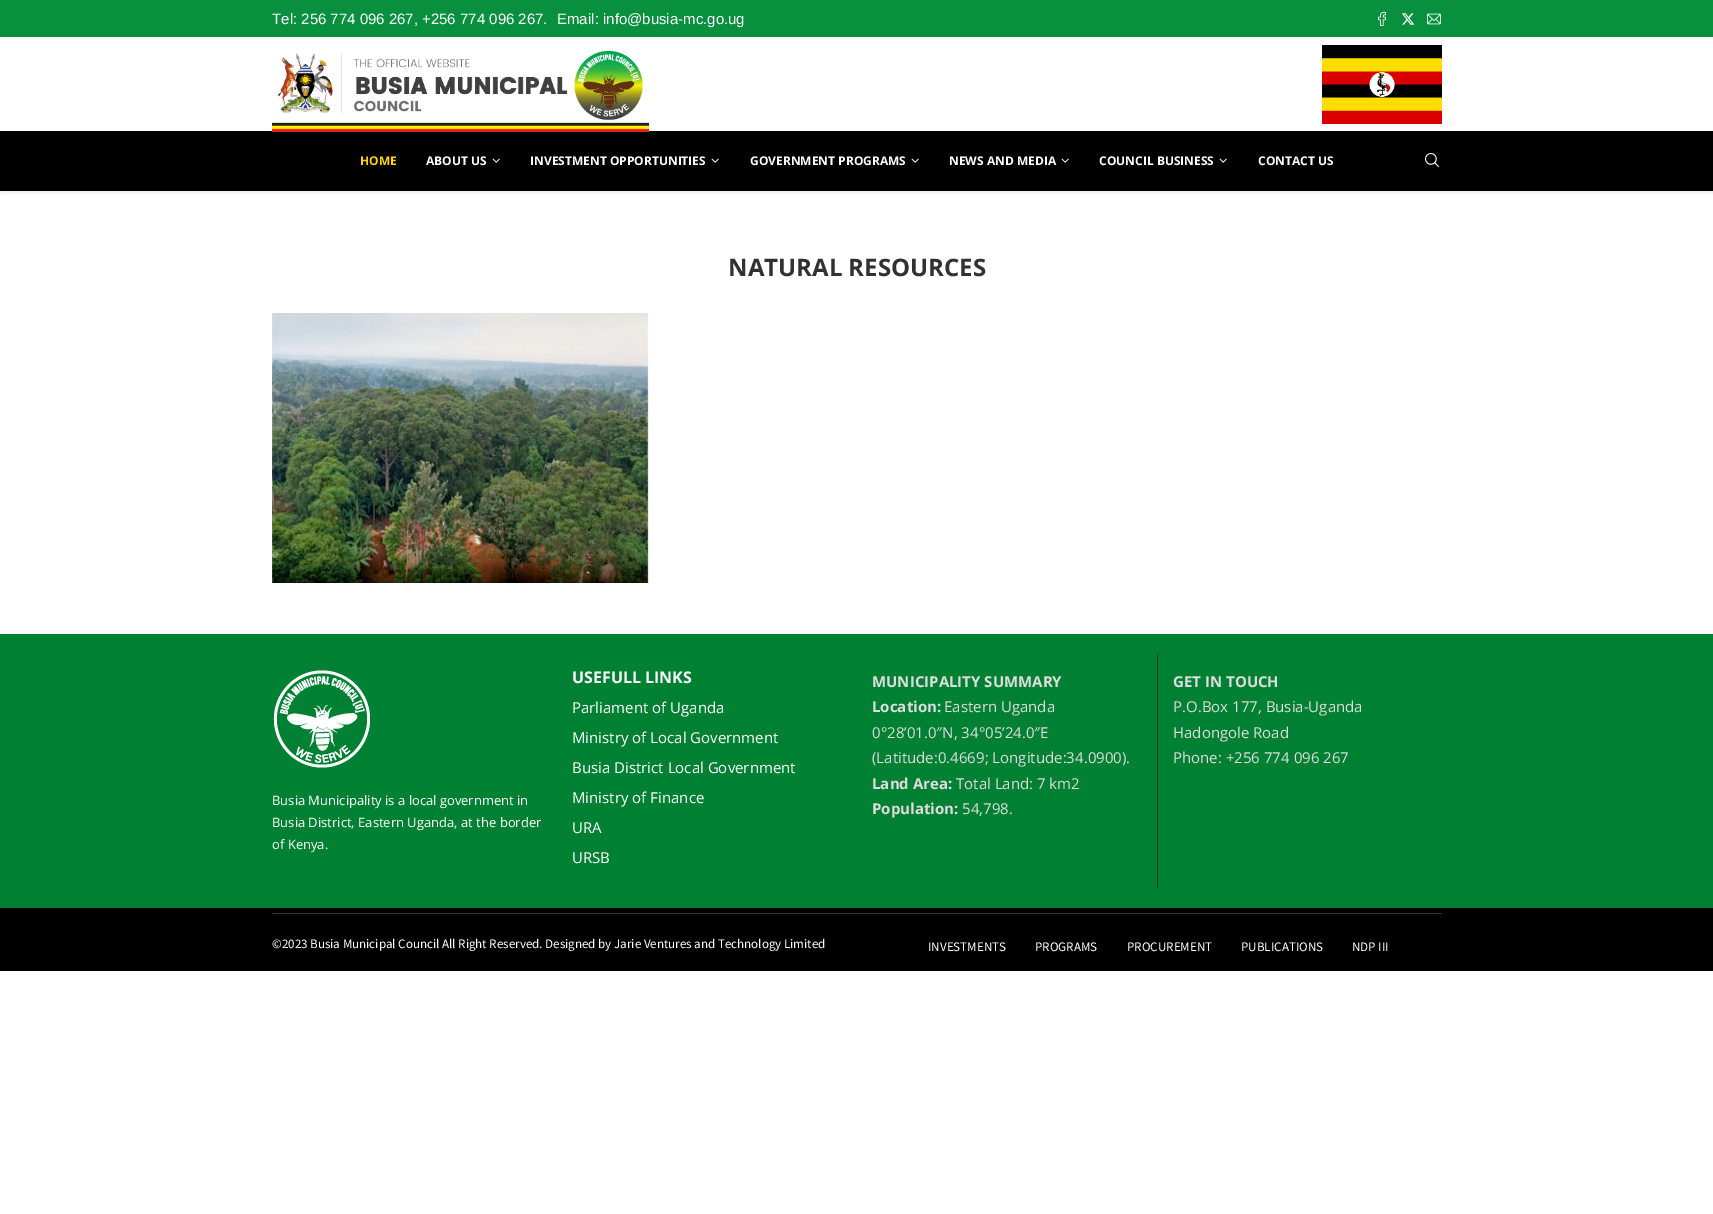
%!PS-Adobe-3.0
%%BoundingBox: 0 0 1713 1214
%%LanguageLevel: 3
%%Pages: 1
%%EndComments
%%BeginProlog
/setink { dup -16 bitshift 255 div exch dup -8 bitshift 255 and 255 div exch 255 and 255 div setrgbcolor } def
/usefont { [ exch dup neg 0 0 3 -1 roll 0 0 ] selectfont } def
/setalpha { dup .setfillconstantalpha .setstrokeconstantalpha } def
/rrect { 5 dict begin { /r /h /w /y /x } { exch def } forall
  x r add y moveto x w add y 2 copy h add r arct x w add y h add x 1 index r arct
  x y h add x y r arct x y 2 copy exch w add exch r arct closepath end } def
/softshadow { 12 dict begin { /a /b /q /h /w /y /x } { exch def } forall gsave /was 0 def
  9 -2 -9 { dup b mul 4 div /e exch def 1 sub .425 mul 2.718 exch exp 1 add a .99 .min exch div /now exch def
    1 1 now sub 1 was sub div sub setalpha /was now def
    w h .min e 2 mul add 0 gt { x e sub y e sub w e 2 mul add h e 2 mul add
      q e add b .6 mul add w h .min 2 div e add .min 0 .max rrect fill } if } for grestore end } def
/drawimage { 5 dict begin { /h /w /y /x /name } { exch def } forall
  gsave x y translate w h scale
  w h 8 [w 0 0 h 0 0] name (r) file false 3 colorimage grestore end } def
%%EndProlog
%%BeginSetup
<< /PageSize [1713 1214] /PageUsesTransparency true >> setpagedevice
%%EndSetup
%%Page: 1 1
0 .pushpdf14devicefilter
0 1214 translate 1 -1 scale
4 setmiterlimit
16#FFFFFF setink
0 0 1713 1214 rectfill
gsave
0 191 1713 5 rectclip
16#BEBEBE setink
0 1 1713 191 0 2.5 0.46 softshadow
grestore
16#09903F setink
0 0 1713 37 rectfill
/LiberationSans-Regular 15 usefont
16#FFFFFF setink
272 24 moveto (Tel: 256 774 096 267, +256 774 096 267.) show
557 24 moveto (Email: info@busia-mc.go.ug) show
(img1.raw) 1378 11 8 15 drawimage
(img2.raw) 1401 13 14 12 drawimage
(img3.raw) 1427 13 14 12 drawimage
16#000000 setink
0 131 1713 60 rectfill
(img4.raw) 272 51 377 81 drawimage
(img5.raw) 1322 45 120 79 drawimage
/OpenSans-Bold 12 usefont
16#FED405 setink
360 165 moveto (HOME) show
16#FFFFFF setink
426 165 moveto (ABOUT US) show
(img6.raw) 492 158 8 5 drawimage
530 165 moveto (INVESTMENT OPPORTUNITIES) show
(img6.raw) 711 158 8 5 drawimage
750 165 moveto (GOVERNMENT PROGRAMS) show
(img6.raw) 911 158 8 5 drawimage
949 165 moveto (NEWS AND MEDIA) show
(img6.raw) 1061 158 8 5 drawimage
1099 165 moveto (COUNCIL BUSINESS) show
(img6.raw) 1219 158 8 5 drawimage
1258 165 moveto (CONTACT US) show
(img7.raw) 1425 153 14 14 drawimage
/OpenSans-Bold 24 usefont
16#313131 setink
728 276 moveto (NATURAL RESOURCES) show
(img8.raw) 272 313 377 270 drawimage
16#008033 setink
0 634 1713 274 rectfill
/OpenSans-Bold 16 usefont
16#FFFFFF setink
572 683 moveto (USEFULL LINKS) show
/OpenSans-Regular 15 usefont
[
    [(Parliament of Uganda) 572 713]
    [(Ministry of Local Government) 572 743]
    [(Busia District Local Government) 572 773]
    [(Ministry of Finance) 572 803]
    [(URA) 572 833]
    [(URSB) 572 863]
] { aload pop moveto show } forall
/OpenSans-Bold 15 usefont
16#DDDDDD setink
872 687 moveto (MUNICIPALITY SUMMARY) show
872 712 moveto (Location:) show
/OpenSans-Regular 15 usefont
[
    [(Eastern Uganda) 944 712]
    [(0°28’01.0″N, 34°05’24.0″E) 872 738]
    [(\(Latitude:0.4669; Longitude:34.0900\).) 872 763]
] { aload pop moveto show } forall
/OpenSans-Bold 15 usefont
872 789 moveto (Land Area:) show
/OpenSans-Regular 15 usefont
956 789 moveto (Total Land: 7 km2) show
/OpenSans-Bold 15 usefont
872 814 moveto (Population:) show
/OpenSans-Regular 15 usefont
962 814 moveto (54,798.) show
16#313131 setink
1157 654 1 234 rectfill
/OpenSans-Bold 15 usefont
16#DDDDDD setink
1173 687 moveto (GET IN TOUCH) show
/OpenSans-Regular 15 usefont
[
    [(P.O.Box 177, Busia-Uganda) 1173 712]
    [(Hadongole Road) 1173 738]
    [(Phone: +256 774 096 267) 1173 763]
] { aload pop moveto show } forall
(img9.raw) 273 670 97 98 drawimage
/OpenSans-Regular 13 usefont
16#FFFFFF setink
[
    [(Busia Municipality is a local government in) 272 805]
    [(Busia District, Eastern Uganda, at the border) 272 827]
    [(of Kenya.) 272 849]
] { aload pop moveto show } forall
16#000000 setink
0 908 1713 63 rectfill
16#313131 setink
272 913 1170 1 rectfill
/SourceSansPro-Regular 13 usefont
16#FFFFFF setink
[
    [(©2023 Busia Municipal Council All Right Reserved. Designed by Jarie Ventures and Technology Limited) 272 948]
    [(INVESTMENTS) 928 951]
    [(PROGRAMS) 1035 951]
    [(PROCUREMENT) 1127 951]
    [(PUBLICATIONS) 1241 951]
    [(NDP III) 1352 951]
] { aload pop moveto show } forall
.poppdf14devicefilter showpage
%%EOF
